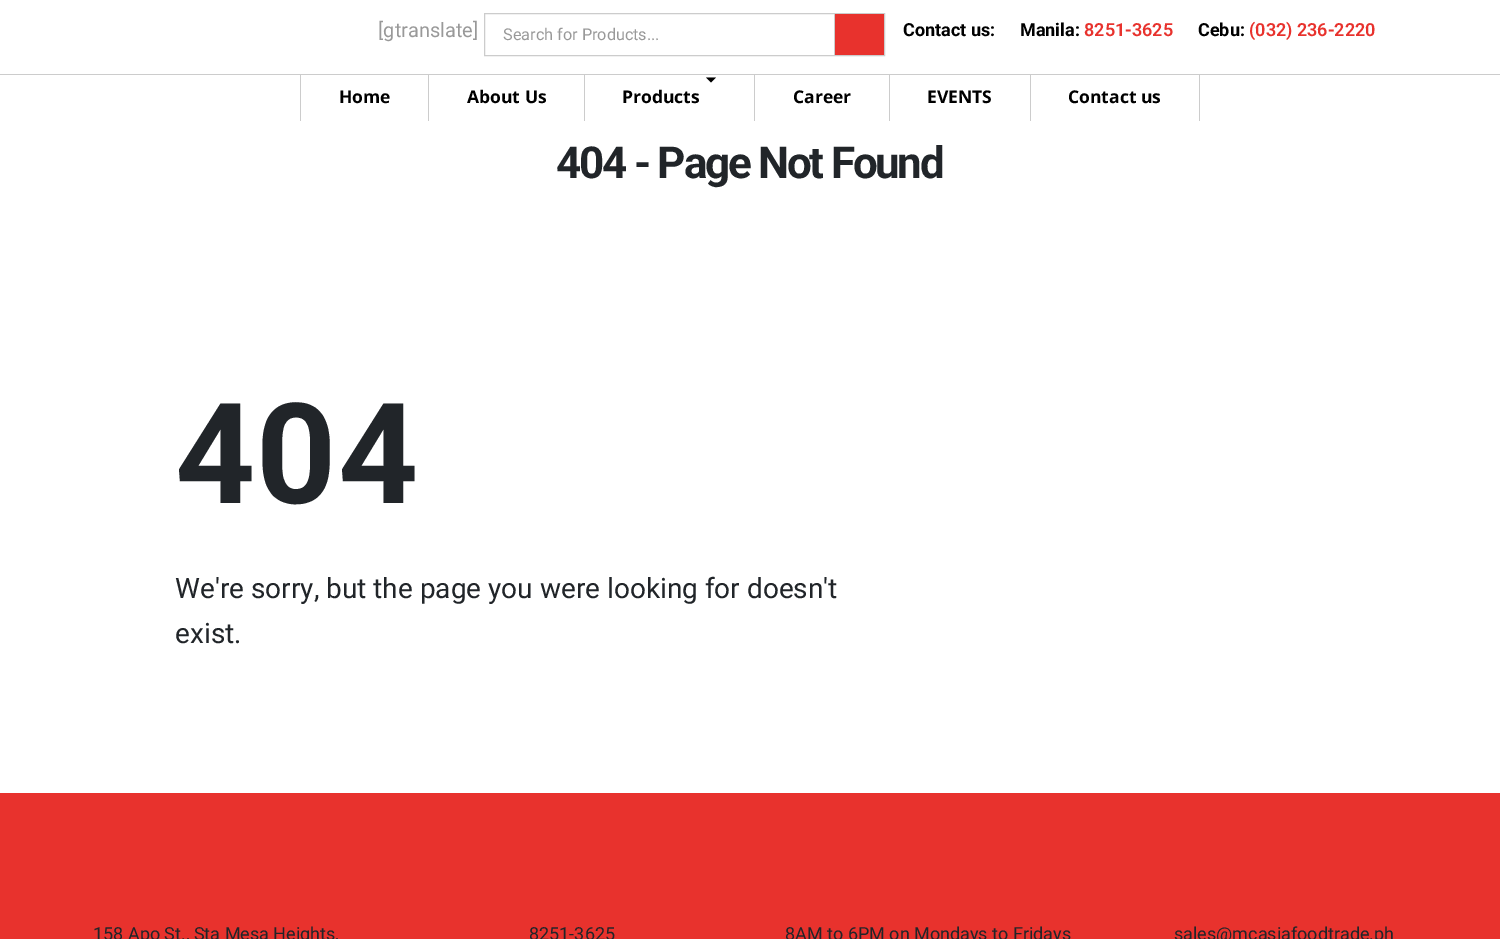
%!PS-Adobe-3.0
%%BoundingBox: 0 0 1500 939
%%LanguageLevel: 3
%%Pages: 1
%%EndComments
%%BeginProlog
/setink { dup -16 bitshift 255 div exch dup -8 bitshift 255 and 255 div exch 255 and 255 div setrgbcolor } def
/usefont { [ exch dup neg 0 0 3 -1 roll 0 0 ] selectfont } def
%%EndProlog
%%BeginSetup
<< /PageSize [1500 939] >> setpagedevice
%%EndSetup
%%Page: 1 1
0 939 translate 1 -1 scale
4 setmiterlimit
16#FFFFFF setink
0 0 1500 939 rectfill
/Roboto-Regular 20 usefont
16#999999 setink
378 37 moveto ([gtranslate]) show
16#CCCCCC setink
484.5 13.5 400 42 rectstroke
834 14 1 41 rectfill
/Roboto-Regular 16.25 usefont
16#999999 setink
503 40 moveto (Search for Products...) show
16#E8322D setink
835 14 49 41 rectfill
/Roboto-Bold 18 usefont
16#000000 setink
903 36 moveto (Contact us:) show
1020 36 moveto (Manila:) show
/Roboto-SemiBold 18 usefont
16#E8322D setink
1084 36 moveto (8251-3625) show
/Roboto-Bold 18 usefont
16#000000 setink
1198 36 moveto (Cebu:) show
/Roboto-SemiBold 18 usefont
16#E8322D setink
1249 36 moveto (\(032\) 236-2220) show
[
    [0 74 1500 1 16#CCCCCC]
    [300 75 1 46 16#CCCCCC]
    [428 75 1 46 16#CCCCCC]
] { aload pop setink rectfill } forall
/OpenSans-Bold 17.5 usefont
16#000000 setink
339 103 moveto (Home) show
16#CCCCCC setink
584 75 1 46 rectfill
16#000000 setink
467 103 moveto (About Us) show
16#CCCCCC setink
754 75 1 46 rectfill
16#000000 setink
706 77.5 moveto 716 77.5 lineto 711 82.5 lineto closepath fill
622 103 moveto (Products) show
16#CCCCCC setink
889 75 1 46 rectfill
16#000000 setink
793 103 moveto (Career) show
16#CCCCCC setink
1030 75 1 46 rectfill
16#000000 setink
927 103 moveto (EVENTS) show
16#CCCCCC setink
1199 75 1 46 rectfill
16#000000 setink
1068 103 moveto (Contact us) show
/Roboto-Bold 44 usefont
16#212529 setink
556 178 moveto -2.25 0 (404 - Page Not Found) ashow
/Roboto-Bold 140 usefont
175 503 moveto 1 0 (404) ashow
/Roboto-Regular 28 usefont
175 598 moveto (We're sorry, but the page you were looking for doesn't) show
175 643 moveto (exist.) show
16#E8322D setink
0 793 1500 146 rectfill
/Roboto-Regular 18 usefont
16#212529 setink
[
    [(158 Apo St., Sta Mesa Heights,) 93 940]
    [(8251-3625) 529 940]
    [(8AM to 6PM on Mondays to Fridays) 785 940]
    [(sales@mcasiafoodtrade.ph) 1174 940]
] { aload pop moveto show } forall
showpage
%%EOF
